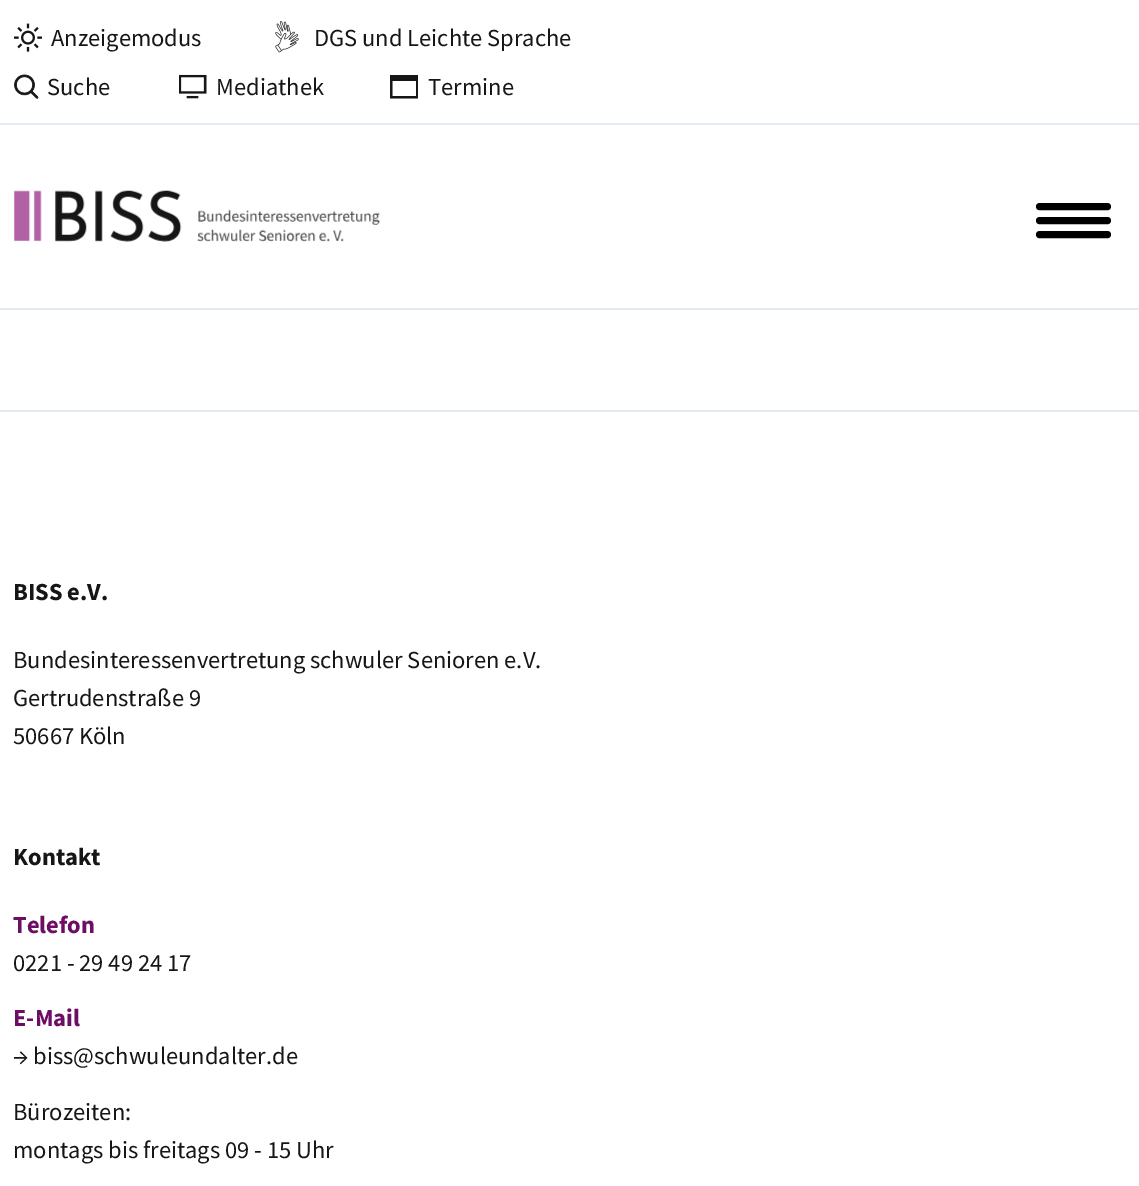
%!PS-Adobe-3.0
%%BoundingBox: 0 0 1139 1186
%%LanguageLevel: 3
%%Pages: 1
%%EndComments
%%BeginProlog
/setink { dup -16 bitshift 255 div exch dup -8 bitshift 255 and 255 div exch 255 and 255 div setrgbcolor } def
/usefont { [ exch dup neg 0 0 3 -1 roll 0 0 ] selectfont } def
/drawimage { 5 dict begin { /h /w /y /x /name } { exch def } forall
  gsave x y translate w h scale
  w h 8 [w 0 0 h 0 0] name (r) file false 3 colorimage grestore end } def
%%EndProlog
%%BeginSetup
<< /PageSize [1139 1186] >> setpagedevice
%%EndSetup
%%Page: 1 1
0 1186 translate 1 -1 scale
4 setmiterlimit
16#FFFFFF setink
0 0 1139 1186 rectfill
16#E4EBF3 setink
0 123 1139 2 rectfill
(img1.raw) 14 23 28 29 drawimage
/SourceSansPro-Regular 24.5 usefont
16#161616 setink
51 46 moveto (Anzeigemodus) show
(img2.raw) 275 21 24 32 drawimage
314 46 moveto (DGS und Leichte Sprache) show
(img3.raw) 14 74 25 25 drawimage
47 95 moveto (Suche) show
(img4.raw) 179 74 28 25 drawimage
216 95 moveto (Mediathek) show
418 75 moveto 418 98.5 lineto 390 98.5 lineto 390 75 lineto closepath 416 81 moveto 392.5 81 lineto 392.5 96 lineto 416 96 lineto closepath fill
428 95 moveto (Termine) show
16#E4EBF3 setink
0 308 1139 2 rectfill
(img5.raw) 14 190 366 52 drawimage
16#000000 setink
7 setlinewidth
1 setlinecap
1039.5 206.5 moveto 1107.5 206.5 lineto 1039.5 220.5 moveto 1107.5 220.5 lineto 1039.5 234.5 moveto 1107.5 234.5 lineto stroke
16#E4EBF3 setink
0 410 1139 2 rectfill
/SourceSansPro-Bold 24.5 usefont
16#161616 setink
13 600 moveto (BISS e.V.) show
/SourceSansPro-Regular 24.5 usefont
[
    [(Bundesinteressenvertretung schwuler Senioren e.V.) 13 668]
    [(Gertrudenstraße 9) 13 706]
    [(50667 Köln) 13 744]
] { aload pop moveto show } forall
/SourceSansPro-Bold 24.5 usefont
13 865 moveto (Kontakt) show
16#6D0E64 setink
13 933 moveto (Telefon) show
/SourceSansPro-Regular 24.5 usefont
16#161616 setink
13 971 moveto (0221 - 29 49 24 17) show
/SourceSansPro-Bold 24.5 usefont
16#6D0E64 setink
13 1026 moveto (E-Mail) show
/SourceSansPro-Regular 24.5 usefont
16#161616 setink
[
    [(→ biss@schwuleundalter.de) 13 1064]
    [(Bürozeiten:) 13 1120]
    [(montags bis freitags 09 - 15 Uhr) 13 1158]
] { aload pop moveto show } forall
showpage
%%EOF
